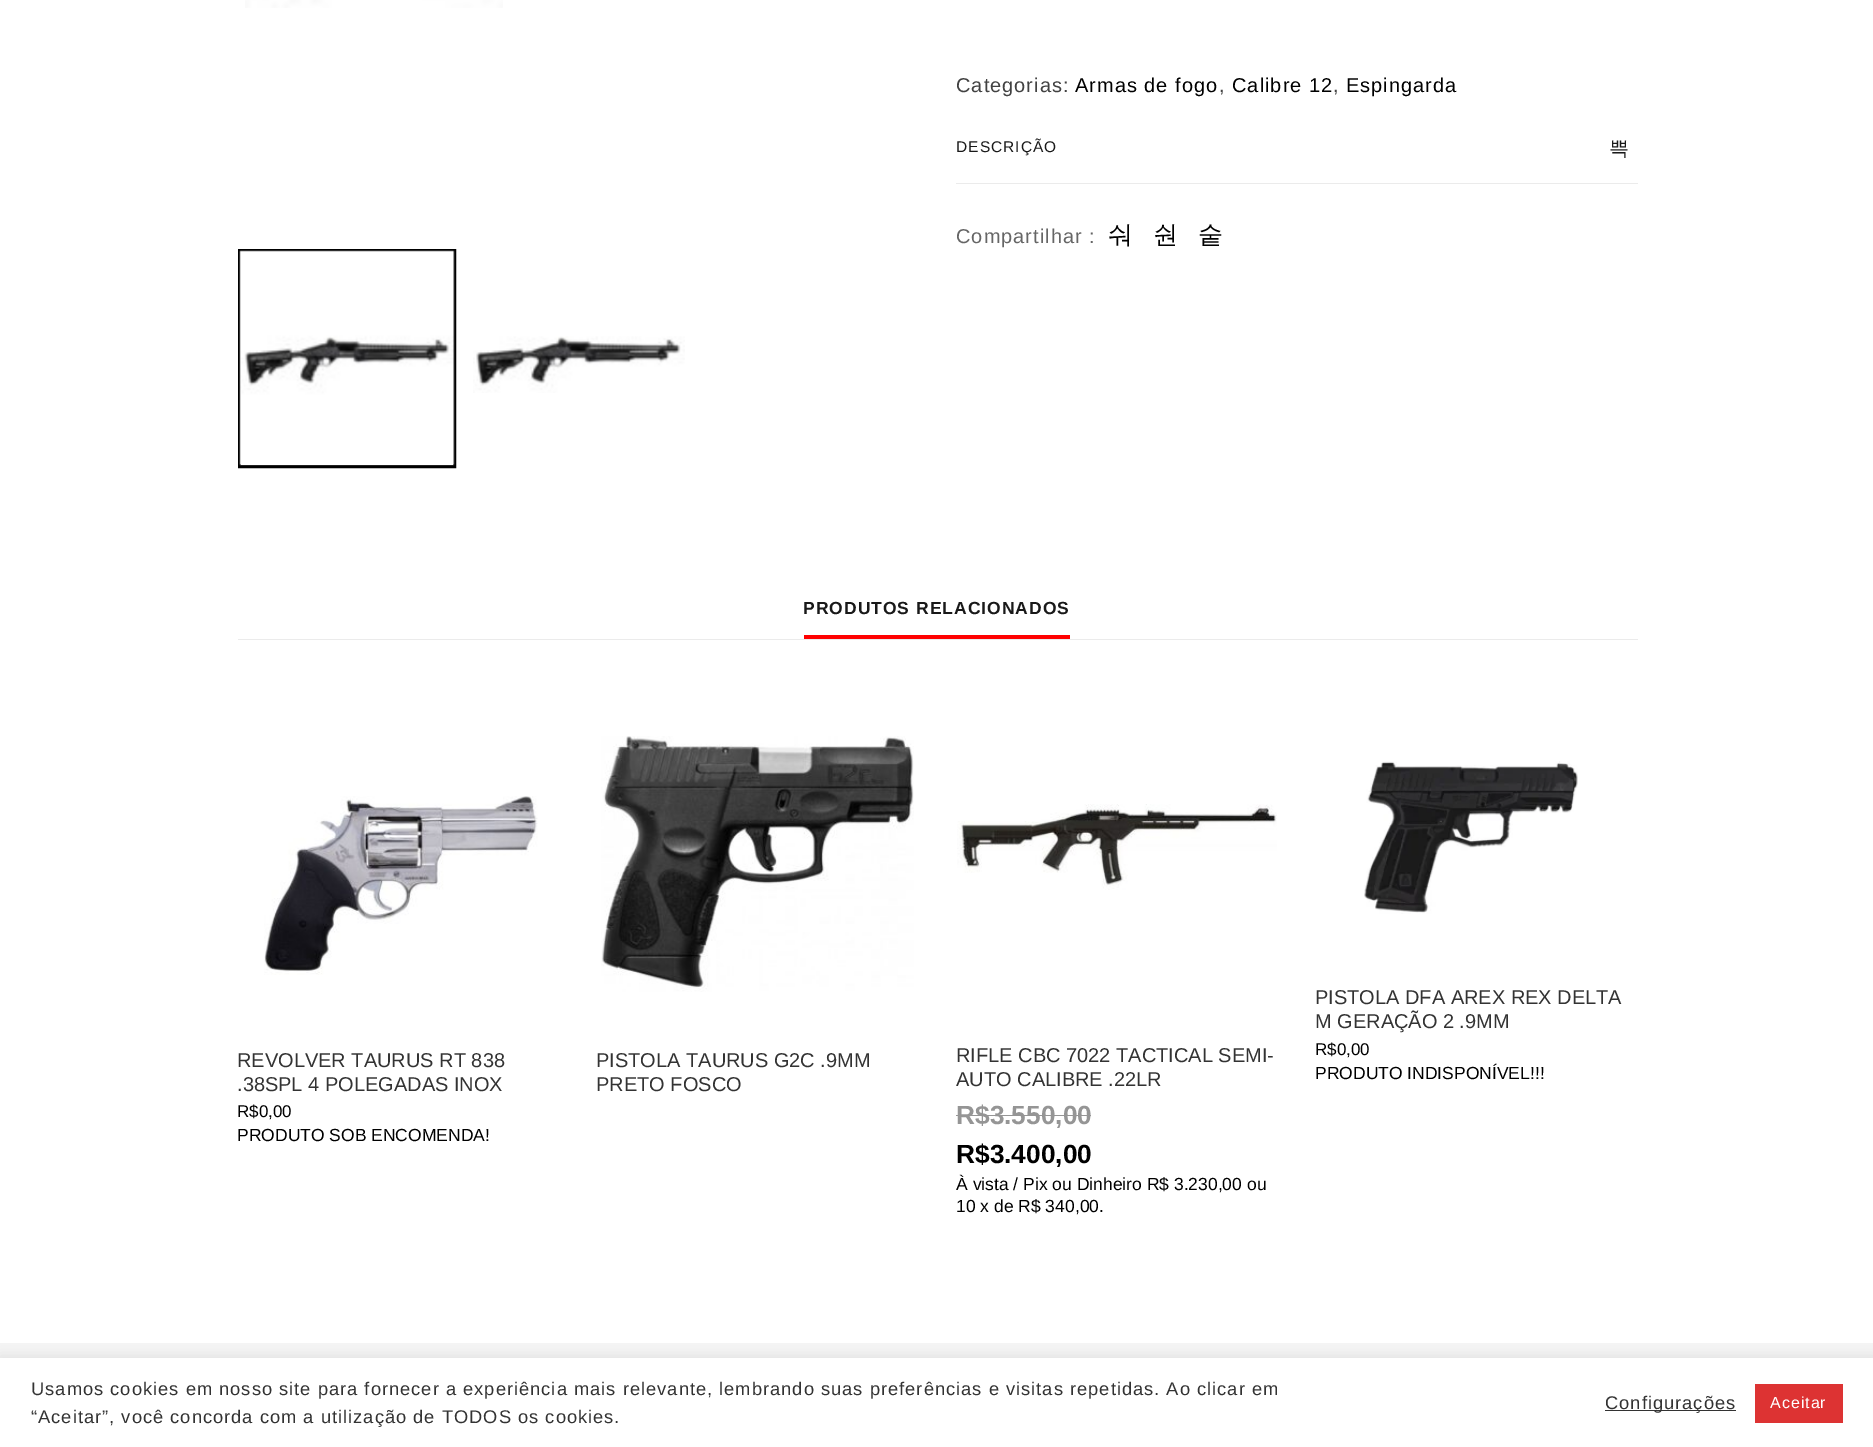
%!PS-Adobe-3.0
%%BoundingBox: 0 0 1873 1447
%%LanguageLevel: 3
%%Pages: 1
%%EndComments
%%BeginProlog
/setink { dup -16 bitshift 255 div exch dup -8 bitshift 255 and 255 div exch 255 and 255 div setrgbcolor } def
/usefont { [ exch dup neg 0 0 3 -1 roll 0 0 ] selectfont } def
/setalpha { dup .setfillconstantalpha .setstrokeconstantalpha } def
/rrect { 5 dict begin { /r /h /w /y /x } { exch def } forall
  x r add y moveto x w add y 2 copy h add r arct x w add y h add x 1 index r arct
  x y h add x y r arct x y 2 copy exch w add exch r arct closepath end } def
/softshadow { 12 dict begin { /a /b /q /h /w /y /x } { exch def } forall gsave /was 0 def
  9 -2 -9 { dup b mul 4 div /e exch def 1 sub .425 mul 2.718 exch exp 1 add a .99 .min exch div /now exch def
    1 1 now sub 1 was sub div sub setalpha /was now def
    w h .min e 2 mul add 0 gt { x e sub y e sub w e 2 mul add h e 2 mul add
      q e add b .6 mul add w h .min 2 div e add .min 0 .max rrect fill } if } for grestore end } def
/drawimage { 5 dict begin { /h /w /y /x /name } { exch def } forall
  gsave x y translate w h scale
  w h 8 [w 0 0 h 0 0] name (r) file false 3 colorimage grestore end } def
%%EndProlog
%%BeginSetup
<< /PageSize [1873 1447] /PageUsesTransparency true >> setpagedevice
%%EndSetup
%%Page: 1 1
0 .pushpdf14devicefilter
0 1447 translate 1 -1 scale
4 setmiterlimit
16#FFFFFF setink
0 0 1873 1447 rectfill
(img1.raw) 245 0 258 8 drawimage
16#000000 setink
3 setlinewidth
239.5 250.5 215 216 rectstroke
(img2.raw) 239 250 216 216 drawimage
(img3.raw) 473 336 212 57 drawimage
/LiberationSans-Regular 20 usefont
16#424242 setink
956 92 moveto 1 0 (Categorias:) ashow
16#000000 setink
1075 92 moveto 1 0 (Armas de fogo) ashow
16#424242 setink
1219 92 moveto 1 0 (,) ashow
16#000000 setink
1232 92 moveto 1 0 (Calibre 12) ashow
16#424242 setink
1333 92 moveto 1 0 (,) ashow
16#000000 setink
1346 92 moveto 1 0 (Espingarda) ashow
16#EBEBEB setink
956 183 682 1 rectfill
/LiberationSans-Regular 15.5 usefont
16#191919 setink
956 152 moveto 1 0 (DESCRIÇÃO) ashow
/WenQuanYiZenHei-Medium 20 usefont
1609 155 moveto 1 0 (쁙) ashow
/LiberationSans-Regular 20 usefont
16#666666 setink
956 243 moveto 1 0 (Compartilhar :) ashow
/WenQuanYiZenHei-Medium 25 usefont
16#000000 setink
1108 243 moveto 1 0 (숴) ashow
1153 243 moveto 1 0 (숸) ashow
1198 243 moveto 1 0 (숱) ashow
16#FF0000 setink
804 635 266 4 rectfill
/LiberationSans-Bold 17.5 usefont
16#191919 setink
803 614 moveto 1 0 (PRODUTOS RELACIONADOS) ashow
16#EBEBEB setink
238 639 1400 1 rectfill
(img4.raw) 1364 761 214 153 drawimage
/LiberationSans-Regular 20 usefont
16#333333 setink
1315 1004 moveto (PISTOLA DFA AREX REX DELTA) show
1315 1028 moveto (M GERAÇÃO 2 .9MM) show
/LiberationSans-Regular 17 usefont
16#000000 setink
1315 1055 moveto (R$0,00) show
/LiberationSans-Regular 17.5 usefont
1315 1079 moveto (PRODUTO INDISPONÍVEL!!!) show
(img5.raw) 264 796 274 179 drawimage
/LiberationSans-Regular 20 usefont
16#333333 setink
237 1067 moveto (REVOLVER TAURUS RT 838) show
237 1091 moveto (.38SPL 4 POLEGADAS INOX) show
/LiberationSans-Regular 17 usefont
16#000000 setink
237 1117 moveto (R$0,00) show
/LiberationSans-Regular 17.5 usefont
237 1141 moveto (PRODUTO SOB ENCOMENDA!) show
(img6.raw) 601 736 313 256 drawimage
/LiberationSans-Regular 20 usefont
16#333333 setink
596 1067 moveto (PISTOLA TAURUS G2C .9MM) show
596 1091 moveto (PRETO FOSCO) show
(img7.raw) 957 804 320 86 drawimage
956 1062 moveto (RIFLE CBC 7022 TACTICAL SEMI-) show
956 1086 moveto (AUTO CALIBRE .22LR) show
/LiberationSans-Bold 26.25 usefont
16#959595 setink
956 1124 moveto (R$3.550,00) show
956 1115 135 1 rectfill
16#000000 setink
956 1163 moveto (R$3.400,00) show
/LiberationSans-Regular 17.5 usefont
956 1190 moveto (À vista / Pix ou Dinheiro R$ 3.230,00 ou) show
956 1212 moveto (10 x de R$ 340,00.) show
16#F5F5F5 setink
0 1343 1873 15 rectfill
16#ACABAB setink
0 1356 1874 90 0 6 0.3 softshadow
16#FFFFFF setink
0 1358 1873 89 rectfill
/LiberationSans-Regular 18.33 usefont
16#333333 setink
31 1395 moveto 1 0 (Usamos cookies em nosso site para fornecer a experiência mais relevante, lembrando suas preferências e visitas repetidas. Ao clicar em) ashow
31 1423 moveto 1 0 (“Aceitar”, você concorda com a utilização de TODOS os cookies.) ashow
1605 1410 131 1 rectfill
1605 1409 moveto 1 0 (Configurações) ashow
16#DD3333 setink
1755 1384 88 39 rectfill
/LiberationSans-Regular 16 usefont
16#FFFFFF setink
1770 1408 moveto 1 0 (Aceitar) ashow
.poppdf14devicefilter showpage
%%EOF
